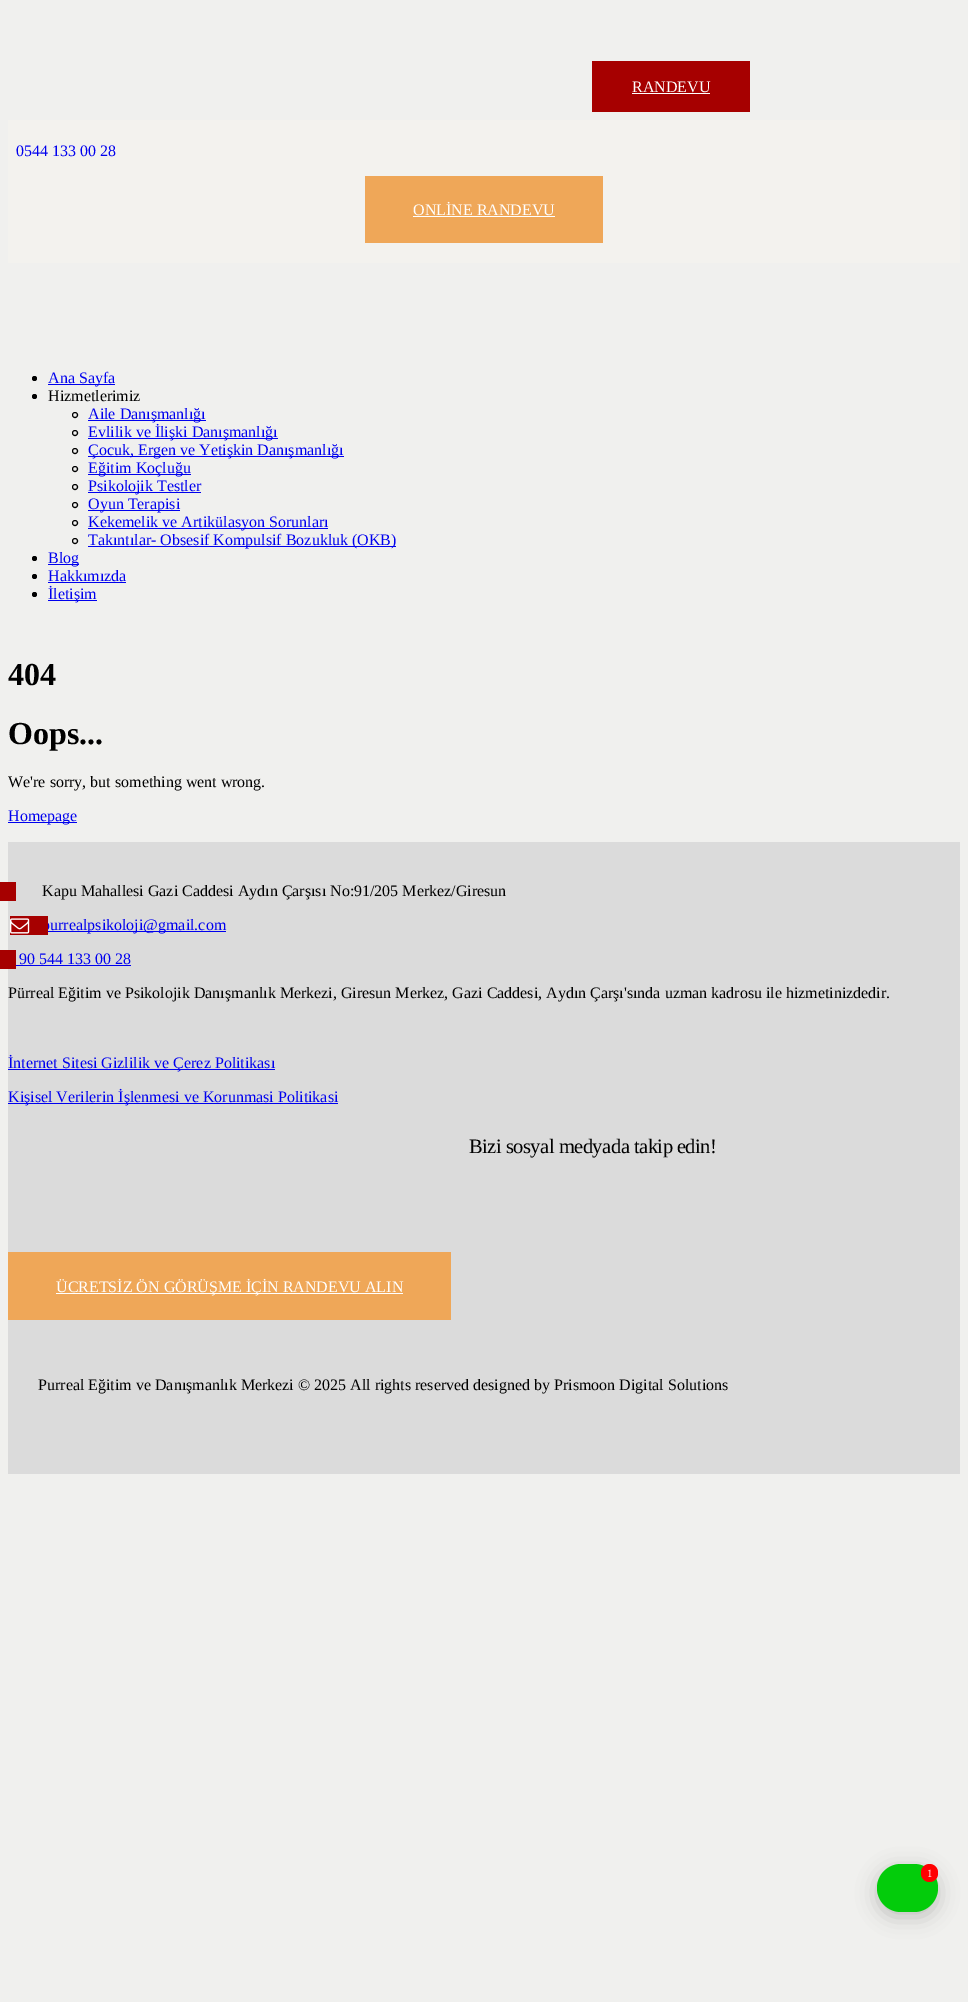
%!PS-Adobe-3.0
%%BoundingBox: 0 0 968 2002
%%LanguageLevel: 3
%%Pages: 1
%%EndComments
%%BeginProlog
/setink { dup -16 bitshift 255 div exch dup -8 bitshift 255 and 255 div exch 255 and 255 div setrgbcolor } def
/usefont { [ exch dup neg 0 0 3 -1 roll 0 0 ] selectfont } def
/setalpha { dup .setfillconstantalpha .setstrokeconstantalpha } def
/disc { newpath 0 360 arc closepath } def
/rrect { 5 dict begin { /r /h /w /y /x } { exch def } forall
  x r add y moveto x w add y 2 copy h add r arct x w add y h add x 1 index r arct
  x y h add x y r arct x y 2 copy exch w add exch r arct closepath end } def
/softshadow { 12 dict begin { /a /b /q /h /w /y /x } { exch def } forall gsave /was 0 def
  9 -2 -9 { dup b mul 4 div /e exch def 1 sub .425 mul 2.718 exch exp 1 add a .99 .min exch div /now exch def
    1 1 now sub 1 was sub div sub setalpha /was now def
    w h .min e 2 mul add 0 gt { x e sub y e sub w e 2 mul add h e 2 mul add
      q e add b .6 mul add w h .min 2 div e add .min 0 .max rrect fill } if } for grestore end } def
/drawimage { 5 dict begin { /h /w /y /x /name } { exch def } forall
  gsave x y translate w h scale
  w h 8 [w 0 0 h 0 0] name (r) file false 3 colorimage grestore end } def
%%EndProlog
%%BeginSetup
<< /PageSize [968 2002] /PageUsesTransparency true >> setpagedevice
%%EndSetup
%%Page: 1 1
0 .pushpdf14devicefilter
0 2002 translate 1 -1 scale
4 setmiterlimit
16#F0F0EE setink
0 0 968 2002 rectfill
16#A60000 setink
592 61 158 51 rectfill
/LiberationSerif-Regular 16 usefont
16#FFFFFF setink
632 92 moveto (RANDEVU) show
632 93 78 1 rectfill
16#F3F2EE setink
8 120 952 143 rectfill
16#0000EE setink
16 156 moveto (0544 133 00 28) show
16#EFA758 setink
365 176 238 67 rectfill
16#FFFFFF setink
413 215 moveto (ONLİNE RANDEVU) show
413 216 142 1 rectfill
16#000000 setink
34.5 378.5 2.5 disc fill
16#0000EE setink
48 384 67 1 rectfill
48 383 moveto (Ana Sayfa) show
16#000000 setink
34.5 396.5 2.5 disc fill
48 401 moveto (Hizmetlerimiz) show
75 415 2.5 disc stroke
16#0000EE setink
88 420 118 1 rectfill
88 419 moveto (Aile Danışmanlığı) show
16#000000 setink
75 433 2.5 disc stroke
16#0000EE setink
88 438 190 1 rectfill
88 437 moveto (Evlilik ve İlişki Danışmanlığı) show
16#000000 setink
75 451 2.5 disc stroke
16#0000EE setink
88 456 256 1 rectfill
88 455 moveto (Çocuk, Ergen ve Yetişkin Danışmanlığı) show
16#000000 setink
75 469 2.5 disc stroke
16#0000EE setink
88 474 103 1 rectfill
88 473 moveto (Eğitim Koçluğu) show
16#000000 setink
75 487 2.5 disc stroke
16#0000EE setink
88 492 113 1 rectfill
88 491 moveto (Psikolojik Testler) show
16#000000 setink
75 505 2.5 disc stroke
16#0000EE setink
88 510 92 1 rectfill
88 509 moveto (Oyun Terapisi) show
16#000000 setink
75 523 2.5 disc stroke
16#0000EE setink
88 528 240 1 rectfill
88 527 moveto (Kekemelik ve Artikülasyon Sorunları) show
16#000000 setink
75 541 2.5 disc stroke
16#0000EE setink
88 546 308 1 rectfill
88 545 moveto (Takıntılar- Obsesif Kompulsif Bozukluk \(OKB\)) show
16#000000 setink
34.5 558.5 2.5 disc fill
16#0000EE setink
48 564 31 1 rectfill
48 563 moveto (Blog) show
16#000000 setink
34.5 576.5 2.5 disc fill
16#0000EE setink
48 581 moveto (Hakkımızda) show
48 582 78 1 rectfill
16#000000 setink
34.5 594.5 2.5 disc fill
16#0000EE setink
48 600 49 1 rectfill
48 599 moveto (İletişim) show
/LiberationSerif-Bold 32 usefont
16#000000 setink
8 685 moveto (404) show
8 744 moveto (Oops...) show
/LiberationSerif-Regular 16 usefont
8 787 moveto (We're sorry, but something went wrong.) show
16#0000EE setink
8 822 69 1 rectfill
8 821 moveto (Homepage) show
16#DBDBDB setink
8 842 952 632 rectfill
16#A60000 setink
0 882 16 19 rectfill
16#000000 setink
42 896 moveto (Kapu Mahallesi Gazi Caddesi Aydın Çarşısı No:91/205 Merkez/Giresun) show
16#0000EE setink
42 931 184 1 rectfill
42 930 moveto (purrealpsikoloji@gmail.com) show
16#A60000 setink
10 916 38 19 rectfill
(img1.raw) 10 918 20 16 drawimage
16#0000EE setink
10 965 121 1 rectfill
16#A60000 setink
0 950 16 19 rectfill
16#0000EE setink
19 964 moveto (90 544 133 00 28) show
16#000000 setink
8 998 moveto (Pürreal Eğitim ve Psikolojik Danışmanlık Merkezi, Giresun Merkez, Gazi Caddesi, Aydın Çarşı'sında uzman kadrosu ile hizmetinizdedir.) show
16#0000EE setink
8 1069 267 1 rectfill
8 1068 moveto (İnternet Sitesi Gizlilik ve Çerez Politikası) show
8 1103 330 1 rectfill
8 1102 moveto (Kişisel Verilerin İşlenmesi ve Korunmasi Politikasi) show
/LiberationSerif-Regular 20.5 usefont
16#000000 setink
469 1153 moveto -0.5 0 (Bizi sosyal medyada takip edin!) ashow
16#EFA758 setink
8 1252 443 68 rectfill
16#FFFFFF setink
56 1293 347 1 rectfill
/LiberationSerif-Regular 16 usefont
56 1292 moveto (ÜCRETSİZ ÖN GÖRÜŞME İÇİN RANDEVU ALIN) show
16#000000 setink
38 1390 moveto (Purreal Eğitim ve Danışmanlık Merkezi © 2025 All rights reserved designed by Prismoon Digital Solutions) show
877 1869 61 48 24 10 0.2 softshadow
16#03CC0B setink
877 1864 61 48 24 rrect fill
16#FF0000 setink
921 1864 17 18 8.5 rrect fill
/LiberationSerif-Regular 11 usefont
16#FFFFFF setink
927 1877 moveto (1) show
.poppdf14devicefilter showpage
%%EOF
